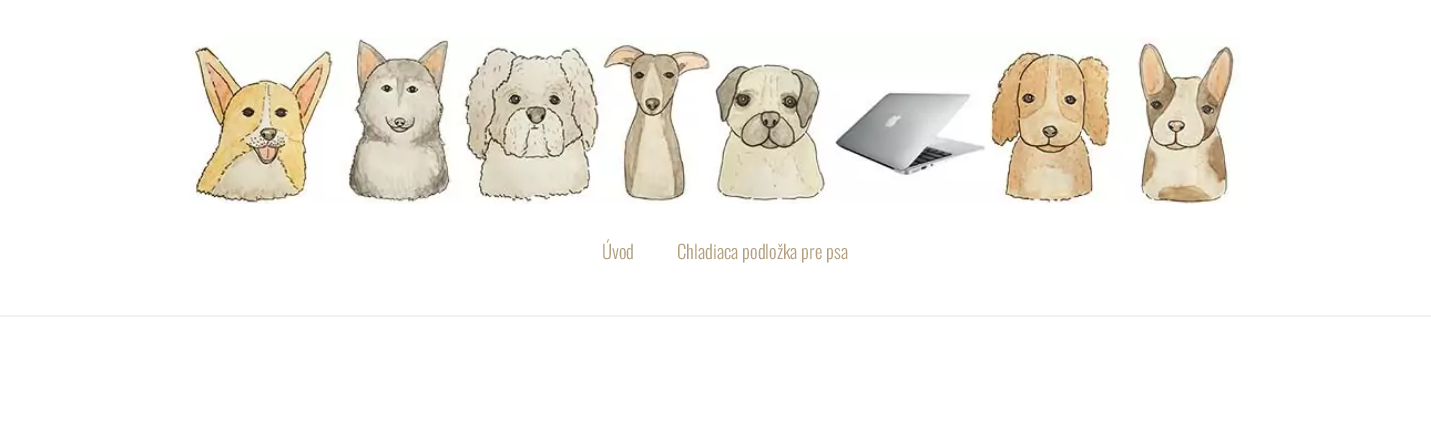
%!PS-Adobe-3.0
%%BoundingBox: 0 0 1431 447
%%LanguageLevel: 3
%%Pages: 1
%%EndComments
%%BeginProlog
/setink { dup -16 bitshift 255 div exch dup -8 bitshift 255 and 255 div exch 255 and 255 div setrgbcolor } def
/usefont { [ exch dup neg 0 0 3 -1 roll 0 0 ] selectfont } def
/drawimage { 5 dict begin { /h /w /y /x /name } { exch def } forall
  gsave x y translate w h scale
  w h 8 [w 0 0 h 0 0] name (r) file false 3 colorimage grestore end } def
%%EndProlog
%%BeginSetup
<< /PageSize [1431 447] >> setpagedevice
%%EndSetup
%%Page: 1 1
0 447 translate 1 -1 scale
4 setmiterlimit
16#FFFFFF setink
0 0 1431 447 rectfill
(img1.raw) 191 37 1050 167 drawimage
/Oswald-Light 18.75 usefont
16#B19F7E setink
602 259 moveto (Úvod) show
677 259 moveto (Chladiaca podložka pre psa) show
16#F1F1F1 setink
0 315 1431 2 rectfill
showpage
%%EOF
